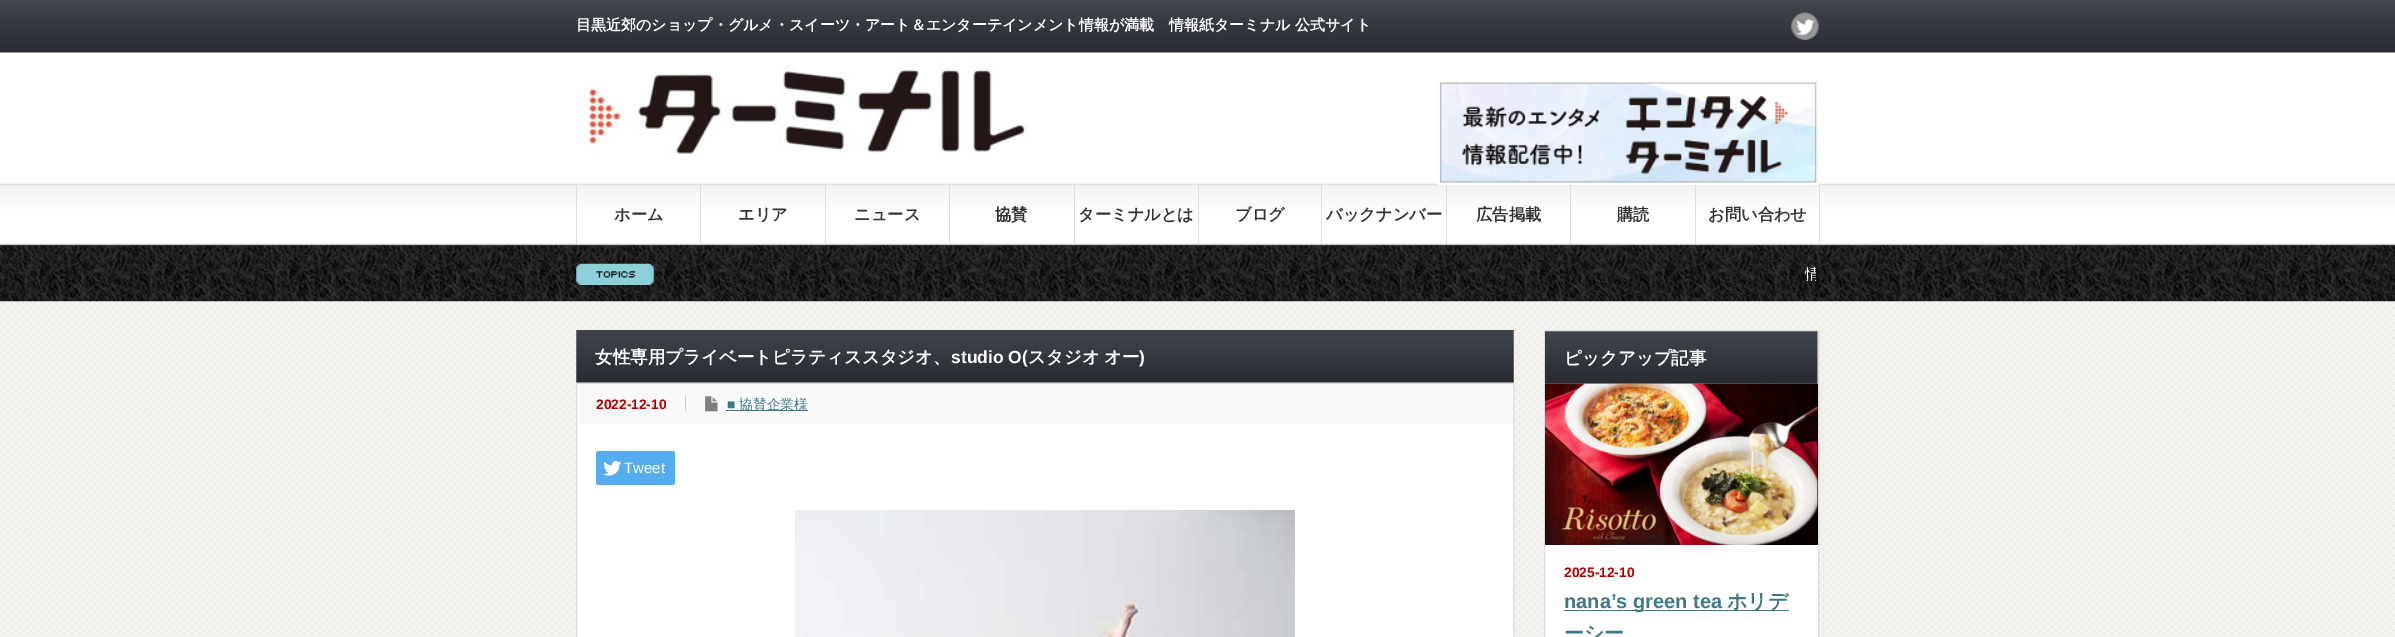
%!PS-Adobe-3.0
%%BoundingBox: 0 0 2395 637
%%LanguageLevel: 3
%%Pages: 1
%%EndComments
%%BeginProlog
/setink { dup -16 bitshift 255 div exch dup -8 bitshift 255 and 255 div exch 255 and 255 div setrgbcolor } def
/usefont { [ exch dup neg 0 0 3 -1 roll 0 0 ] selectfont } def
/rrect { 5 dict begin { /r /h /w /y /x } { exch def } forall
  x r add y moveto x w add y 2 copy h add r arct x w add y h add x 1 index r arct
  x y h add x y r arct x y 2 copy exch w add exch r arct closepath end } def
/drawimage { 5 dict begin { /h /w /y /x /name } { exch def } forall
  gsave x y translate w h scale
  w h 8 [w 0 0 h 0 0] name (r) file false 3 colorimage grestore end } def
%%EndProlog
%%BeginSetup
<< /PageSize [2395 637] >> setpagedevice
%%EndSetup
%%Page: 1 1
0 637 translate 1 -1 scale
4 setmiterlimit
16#FFFFFF setink
0 0 2395 637 rectfill
(img1.raw) 0 301 2395 336 drawimage
(img2.raw) 0 0 2395 302 drawimage
/WenQuanYiZenHei-Bold 15 usefont
576 30 moveto (目黒近郊のショップ・グルメ・スイーツ・アート＆エンターテインメント情報が満載　情報紙ターミナル 公式サイト) show
(img3.raw) 1791 12 28 28 drawimage
(img4.raw) 588 63 441 97 drawimage
(img5.raw) 1437 80 382 105 drawimage
16#DDDDDD setink
1819 185 1 59 rectfill
576 185 1 59 rectfill
/WenQuanYiZenHei-Bold 16.25 usefont
16#333333 setink
614 220 moveto (ホーム) show
16#DDDDDD setink
700 185 1 59 rectfill
16#333333 setink
738 220 moveto (エリア) show
16#DDDDDD setink
825 185 1 59 rectfill
16#333333 setink
854 220 moveto (ニュース) show
16#DDDDDD setink
949 185 1 59 rectfill
16#333333 setink
995 220 moveto (協賛) show
16#DDDDDD setink
1074 185 1 59 rectfill
16#333333 setink
1078 220 moveto (ターミナルとは) show
16#DDDDDD setink
1198 185 1 59 rectfill
16#333333 setink
1235 220 moveto (ブログ) show
16#DDDDDD setink
1321 185 1 59 rectfill
16#333333 setink
1326 220 moveto (バックナンバー) show
16#DDDDDD setink
1446 185 1 59 rectfill
16#333333 setink
1476 220 moveto (広告掲載) show
16#DDDDDD setink
1570 185 1 59 rectfill
16#333333 setink
1617 220 moveto (購読) show
16#DDDDDD setink
1695 185 1 59 rectfill
16#333333 setink
1708 220 moveto (お問い合わせ) show
(img6.raw) 576 263 78 22 drawimage
gsave
671 260 1145 29 rectclip
/WenQuanYiZenHei-Medium 15 usefont
16#FFFFFF setink
1805 279 moveto (情) show
grestore
(img7.raw) 576 330 938 53 drawimage
/WenQuanYiZenHei-Bold 17.5 usefont
16#FFFFFF setink
595 363 moveto (女性専用プライベートピラティススタジオ、) show
/LiberationSans-Bold 17.5 usefont
951 363 moveto (studio O\() show
/WenQuanYiZenHei-Bold 17.5 usefont
1028 363 moveto (スタジオ) show
1104 363 moveto (オー) show
/LiberationSans-Bold 17.5 usefont
1139 363 moveto (\)) show
576.5 383.5 moveto 1513.5 383.5 lineto 1513.5 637.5 lineto 576.5 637.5 lineto closepath gsave fill grestore
16#DDDDDD setink
stroke
16#FAFAFA setink
578 384 935 40 rectfill
16#CCCCCC setink
685 396 1 15 rectfill
/LiberationSans-Bold 13.75 usefont
16#B20000 setink
596 409 moveto (2022-12-10) show
(img8.raw) 705 396 13 16 drawimage
/LiberationSans-Regular 13.75 usefont
16#3F7985 setink
727 409 moveto (■) show
726 410 82 1 rectfill
/WenQuanYiZenHei-Medium 13.75 usefont
739 409 moveto (協賛企業様) show
16#F7F7F7 setink
596 454 moveto 596 474 lineto 596 489 594 486 611 486 curveto 673 486 lineto 675 485 675 484 675 482 curveto 675 484 674 485 672 485 curveto 599 485 lineto 597 485 596 484 596 482 curveto closepath fill
16#55ACEE setink
596 451 79 34 2.5 rrect fill
(img9.raw) 603 461 19 15 drawimage
/LiberationSans-Regular 15 usefont
16#FFFFFF setink
624 473 moveto (Tweet) show
(img10.raw) 795 510 500 127 drawimage
1544.5 330.5 moveto 1818.5 330.5 lineto 1818.5 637.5 lineto 1544.5 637.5 lineto closepath gsave fill grestore
16#DDDDDD setink
stroke
(img11.raw) 1545 331 273 53 drawimage
/WenQuanYiZenHei-Bold 17.5 usefont
16#FFFFFF setink
1564 364 moveto (ピックアップ記事) show
16#000000 setink
1817 384 1 161 rectfill
(img12.raw) 1545 383 273 162 drawimage
/LiberationSans-Bold 13.75 usefont
16#B20000 setink
1564 577 moveto (2025-12-10) show
16#3F7985 setink
1564 610 225 1 rectfill
/LiberationSans-Bold 20 usefont
1564 608 moveto (nana’s green tea) show
/WenQuanYiZenHei-Bold 20 usefont
1727 608 moveto (ホリデ) show
1564 640 moveto (ーシー) show
showpage
%%EOF
